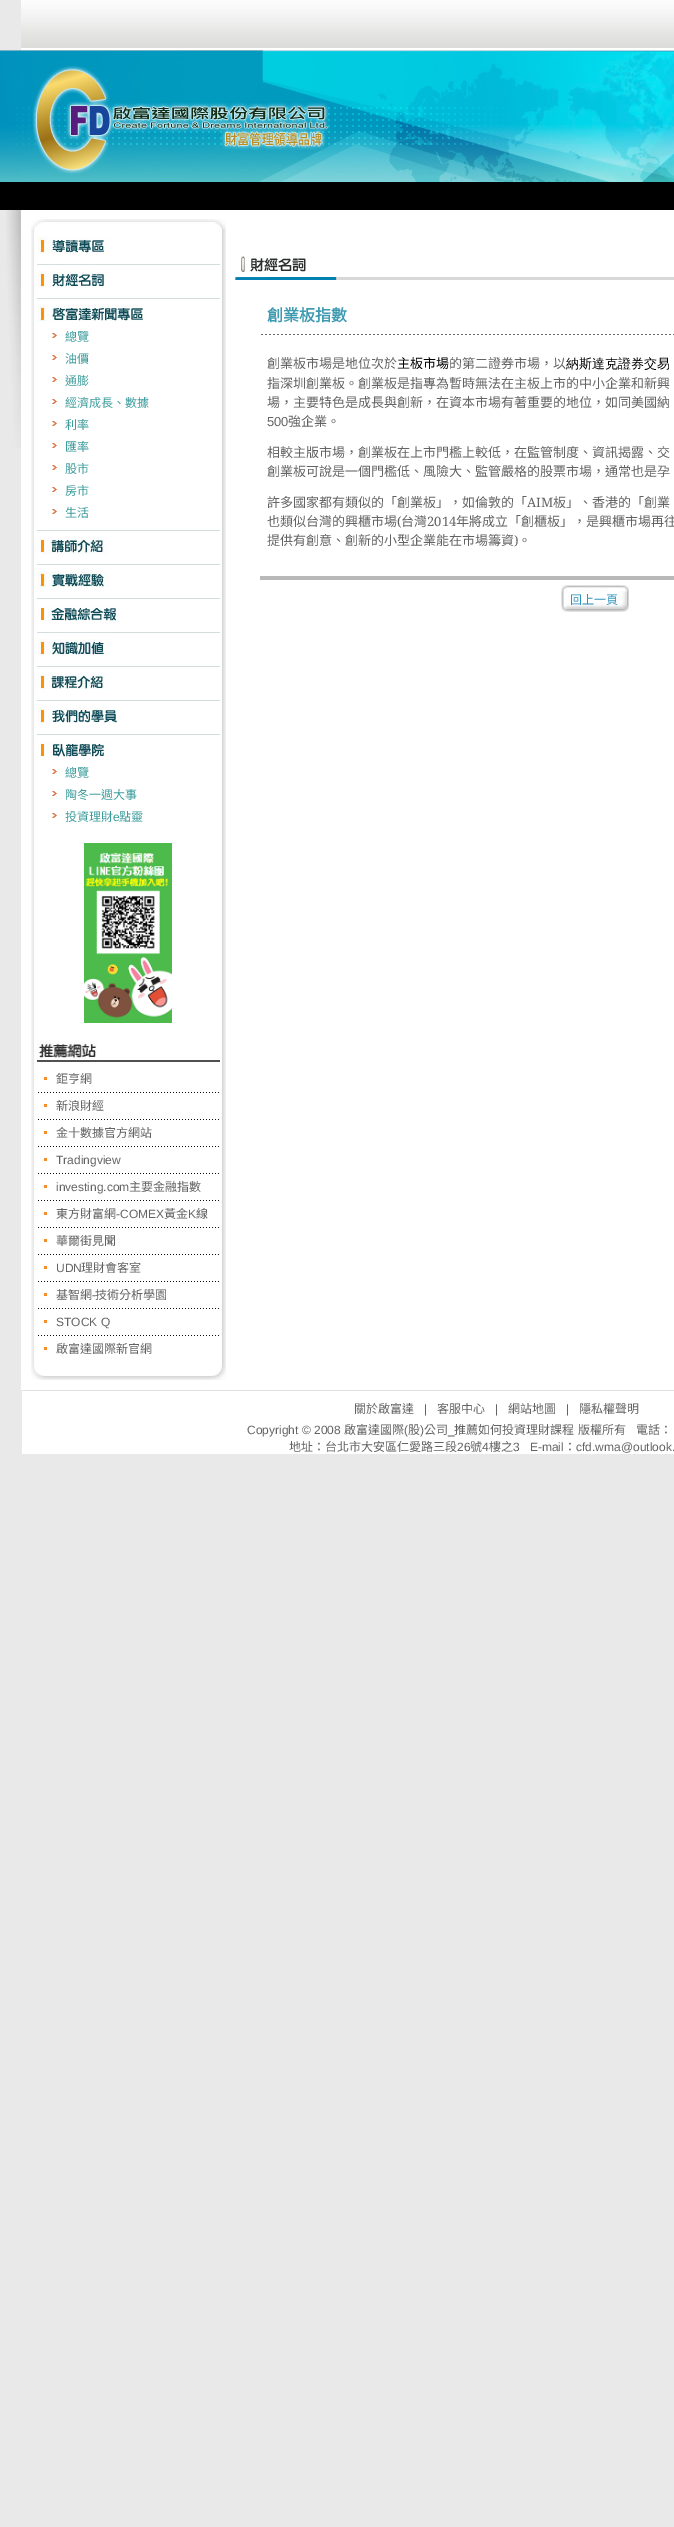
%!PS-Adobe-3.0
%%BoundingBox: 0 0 674 2527
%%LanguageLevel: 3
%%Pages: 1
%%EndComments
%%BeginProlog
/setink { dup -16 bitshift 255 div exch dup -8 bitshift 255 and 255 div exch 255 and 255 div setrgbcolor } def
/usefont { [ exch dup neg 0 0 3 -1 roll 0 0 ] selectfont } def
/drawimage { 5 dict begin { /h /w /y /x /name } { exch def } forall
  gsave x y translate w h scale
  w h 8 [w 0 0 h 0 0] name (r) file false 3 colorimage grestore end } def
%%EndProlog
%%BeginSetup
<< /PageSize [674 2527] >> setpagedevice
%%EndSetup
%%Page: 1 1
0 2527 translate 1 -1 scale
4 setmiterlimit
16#E9E9E9 setink
0 0 674 2527 rectfill
(img1.raw) 21 0 653 50 drawimage
(img2.raw) 0 50 674 136 drawimage
16#000000 setink
0 186 674 24 rectfill
(img3.raw) 6 210 15 238 drawimage
16#FFFFFF setink
21 210 653 1180 rectfill
(img4.raw) 31 219 195 10 drawimage
(img5.raw) 31 229 195 1137 drawimage
(img6.raw) 38 237 70 18 drawimage
16#D3DDDE setink
37 264 183 1 rectfill
(img7.raw) 38 271 72 18 drawimage
37 298 183 1 rectfill
(img8.raw) 38 305 109 16 drawimage
(img9.raw) 52 333 5 5 drawimage
/NotoSansCJKTC-Regular 12 usefont
16#3E9C9C setink
65 341 moveto (總覽) show
(img9.raw) 52 355 5 5 drawimage
65 363 moveto (油價) show
(img9.raw) 52 377 5 5 drawimage
65 385 moveto (通膨) show
(img9.raw) 52 399 5 5 drawimage
65 407 moveto (經濟成長、數據) show
(img9.raw) 52 421 5 5 drawimage
65 429 moveto (利率) show
(img9.raw) 52 443 5 5 drawimage
65 451 moveto (匯率) show
(img9.raw) 52 465 5 5 drawimage
65 473 moveto (股市) show
(img9.raw) 52 487 5 5 drawimage
65 495 moveto (房市) show
(img9.raw) 52 509 5 5 drawimage
65 517 moveto (生活) show
16#D3DDDE setink
37 530 183 1 rectfill
(img10.raw) 38 537 70 18 drawimage
37 564 183 1 rectfill
(img11.raw) 38 571 72 18 drawimage
37 598 183 1 rectfill
(img12.raw) 38 605 80 16 drawimage
37 632 183 1 rectfill
(img13.raw) 38 639 72 16 drawimage
37 666 183 1 rectfill
(img14.raw) 38 673 70 16 drawimage
37 700 183 1 rectfill
(img15.raw) 38 707 80 18 drawimage
37 734 183 1 rectfill
(img16.raw) 38 741 72 16 drawimage
(img9.raw) 52 769 5 5 drawimage
16#3E9C9C setink
65 777 moveto (總覽) show
(img9.raw) 52 791 5 5 drawimage
65 799 moveto (陶冬一週大事) show
(img9.raw) 52 813 5 5 drawimage
65 821 moveto (投資理財) show
/LiberationSans-Regular 12 usefont
113 821 moveto (e) show
/NotoSansCJKTC-Regular 12 usefont
119 821 moveto (點靈) show
(img17.raw) 84 843 88 180 drawimage
16#515151 setink
37 1060 183 2 rectfill
(img18.raw) 37 1041 60 19 drawimage
16#F68C26 setink
44 1077 3 3 rectfill
16#636363 setink
56 1083 moveto (鉅亨網) show
(img19.raw) 38 1092 181 1 drawimage
16#F68C26 setink
44 1104 3 3 rectfill
16#636363 setink
56 1110 moveto (新浪財經) show
(img19.raw) 38 1119 181 1 drawimage
16#F68C26 setink
44 1131 3 3 rectfill
16#636363 setink
56 1137 moveto (金十數據官方網站) show
(img19.raw) 38 1146 181 1 drawimage
16#F68C26 setink
44 1158 3 3 rectfill
/LiberationSans-Regular 12 usefont
16#636363 setink
56 1164 moveto (Tradingview) show
(img19.raw) 38 1173 181 1 drawimage
16#F68C26 setink
44 1185 3 3 rectfill
16#636363 setink
56 1191 moveto (investing.com) show
/NotoSansCJKTC-Regular 12 usefont
129 1191 moveto (主要金融指數) show
(img19.raw) 38 1200 181 1 drawimage
16#F68C26 setink
44 1212 3 3 rectfill
16#636363 setink
56 1218 moveto (東方財富網) show
/LiberationSans-Regular 12 usefont
116 1218 moveto (-COMEX) show
/NotoSansCJKTC-Regular 12 usefont
164 1218 moveto (黃金) show
/LiberationSans-Regular 12 usefont
188 1218 moveto (K) show
/NotoSansCJKTC-Regular 12 usefont
196 1218 moveto (線) show
(img19.raw) 38 1227 181 1 drawimage
16#F68C26 setink
44 1239 3 3 rectfill
16#636363 setink
56 1245 moveto (華爾街見聞) show
(img19.raw) 38 1254 181 1 drawimage
16#F68C26 setink
44 1266 3 3 rectfill
/LiberationSans-Regular 12 usefont
16#636363 setink
56 1272 moveto (UDN) show
/NotoSansCJKTC-Regular 12 usefont
81 1272 moveto (理財會客室) show
(img19.raw) 38 1281 181 1 drawimage
16#F68C26 setink
44 1293 3 3 rectfill
16#636363 setink
56 1299 moveto (基智網) show
/LiberationSans-Regular 12 usefont
92 1299 moveto (-) show
/NotoSansCJKTC-Regular 12 usefont
95 1299 moveto (技術分析學園) show
(img19.raw) 38 1308 181 1 drawimage
16#F68C26 setink
44 1320 3 3 rectfill
/LiberationSans-Regular 12 usefont
16#636363 setink
56 1326 moveto (STOCK Q) show
(img19.raw) 38 1335 181 1 drawimage
16#F68C26 setink
44 1347 3 3 rectfill
/NotoSansCJKTC-Regular 12 usefont
16#636363 setink
56 1353 moveto (啟富達國際新官網) show
(img20.raw) 31 1366 195 14 drawimage
(img21.raw) 240 254 66 18 drawimage
16#D8D8D8 setink
338 277 336 3 rectfill
(img22.raw) 235 277 103 3 drawimage
/NotoSansCJKTC-Bold 16 usefont
16#3E9AB1 setink
267 321 moveto (創業板指數) show
(img23.raw) 261 334 413 1 drawimage
/NotoSansCJKTC-Regular 13 usefont
16#636363 setink
267 368 moveto (創業板市場是地位次於) show
16#000000 setink
397 368 moveto (主板市場) show
16#636363 setink
449 368 moveto (的第二證券市場，以) show
/WenQuanYiZenHei-Medium 13 usefont
16#000000 setink
566 368 moveto (納斯達克證券交易) show
/NotoSansCJKTC-Regular 13 usefont
16#636363 setink
267 388 moveto (指深圳創業板。創業板是指專為暫時無法在主板上市的中小企業和新興) show
267 407 moveto (場，主要特色是成長與創新，在資本市場有著重要的地位，如同美國納) show
/LiberationSans-Regular 13 usefont
267 426 moveto (500) show
/NotoSansCJKTC-Regular 13 usefont
[
    [(強企業。) 288 426]
    [(相較主版市場，創業板在上市門檻上較低，在監管制度、資訊揭露、交) 267 457]
    [(創業板可說是一個門檻低、風險大、監管嚴格的股票市場，通常也是孕) 267 476]
    [(許多國家都有類似的「創業板」，如倫敦的「) 267 507]
] { aload pop moveto show } forall
/NotoSerif-Regular 13 usefont
527 507 moveto (AIM) show
/NotoSansCJKTC-Regular 13 usefont
553 507 moveto (板」、香港的「創業) show
267 526 moveto (也類似台灣的興櫃市場) show
/NotoSerif-Regular 13 usefont
397 526 moveto (\() show
/NotoSansCJKTC-Regular 13 usefont
401 526 moveto (台灣) show
/NotoSerif-Regular 13 usefont
427 526 moveto (2014) show
/NotoSansCJKTC-Regular 13 usefont
456 526 moveto (年將成立「創櫃板」，是興櫃市場再往) show
267 545 moveto (提供有創意、創新的小型企業能在市場籌資) show
/NotoSerif-Regular 13 usefont
514 545 moveto (\)) show
/NotoSansCJKTC-Regular 13 usefont
518 545 moveto (。) show
16#B8B8B8 setink
260 576 414 4 rectfill
(img24.raw) 561 585 68 27 drawimage
/NotoSansCJKTC-Regular 12 usefont
16#2F92BC setink
570 604 moveto (回上一頁) show
16#FFFFFF setink
22 1391 652 63 rectfill
16#DFDFDF setink
22 1390 652 1 rectfill
16#636363 setink
354 1413 moveto (關於啟富達) show
/LiberationSans-Regular 12 usefont
424 1413 moveto (|) show
/NotoSansCJKTC-Regular 12 usefont
437 1413 moveto (客服中心) show
/LiberationSans-Regular 12 usefont
495 1413 moveto (|) show
/NotoSansCJKTC-Regular 12 usefont
508 1413 moveto (網站地圖) show
/LiberationSans-Regular 12 usefont
566 1413 moveto (|) show
/NotoSansCJKTC-Regular 12 usefont
579 1413 moveto (隱私權聲明) show
/LiberationSans-Regular 12 usefont
247 1434 moveto (Copyright © 2008) show
/NotoSansCJKTC-Regular 12 usefont
344 1434 moveto (啟富達國際) show
/LiberationSans-Regular 12 usefont
404 1434 moveto (\() show
/NotoSansCJKTC-Regular 12 usefont
408 1434 moveto (股) show
/LiberationSans-Regular 12 usefont
420 1434 moveto (\)) show
/NotoSansCJKTC-Regular 12 usefont
424 1434 moveto (公司) show
/LiberationSans-Regular 12 usefont
448 1434 moveto (_) show
/NotoSansCJKTC-Regular 12 usefont
[
    [(推薦如何投資理財課程) 454 1434]
    [(版權所有) 578 1434]
    [(電話：) 636 1434]
    [(地址：台北市大安區仁愛路三段) 289 1451]
] { aload pop moveto show } forall
/LiberationSans-Regular 12 usefont
457 1451 moveto (26) show
/NotoSansCJKTC-Regular 12 usefont
470 1451 moveto (號) show
/LiberationSans-Regular 12 usefont
482 1451 moveto (4) show
/NotoSansCJKTC-Regular 12 usefont
489 1451 moveto (樓之) show
/LiberationSans-Regular 12 usefont
513 1451 moveto (3   E-mail) show
/NotoSansCJKTC-Regular 12 usefont
564 1451 moveto (：) show
/LiberationSans-Regular 12 usefont
576 1451 moveto (cfd.wma@outlook.) show
showpage
%%EOF
